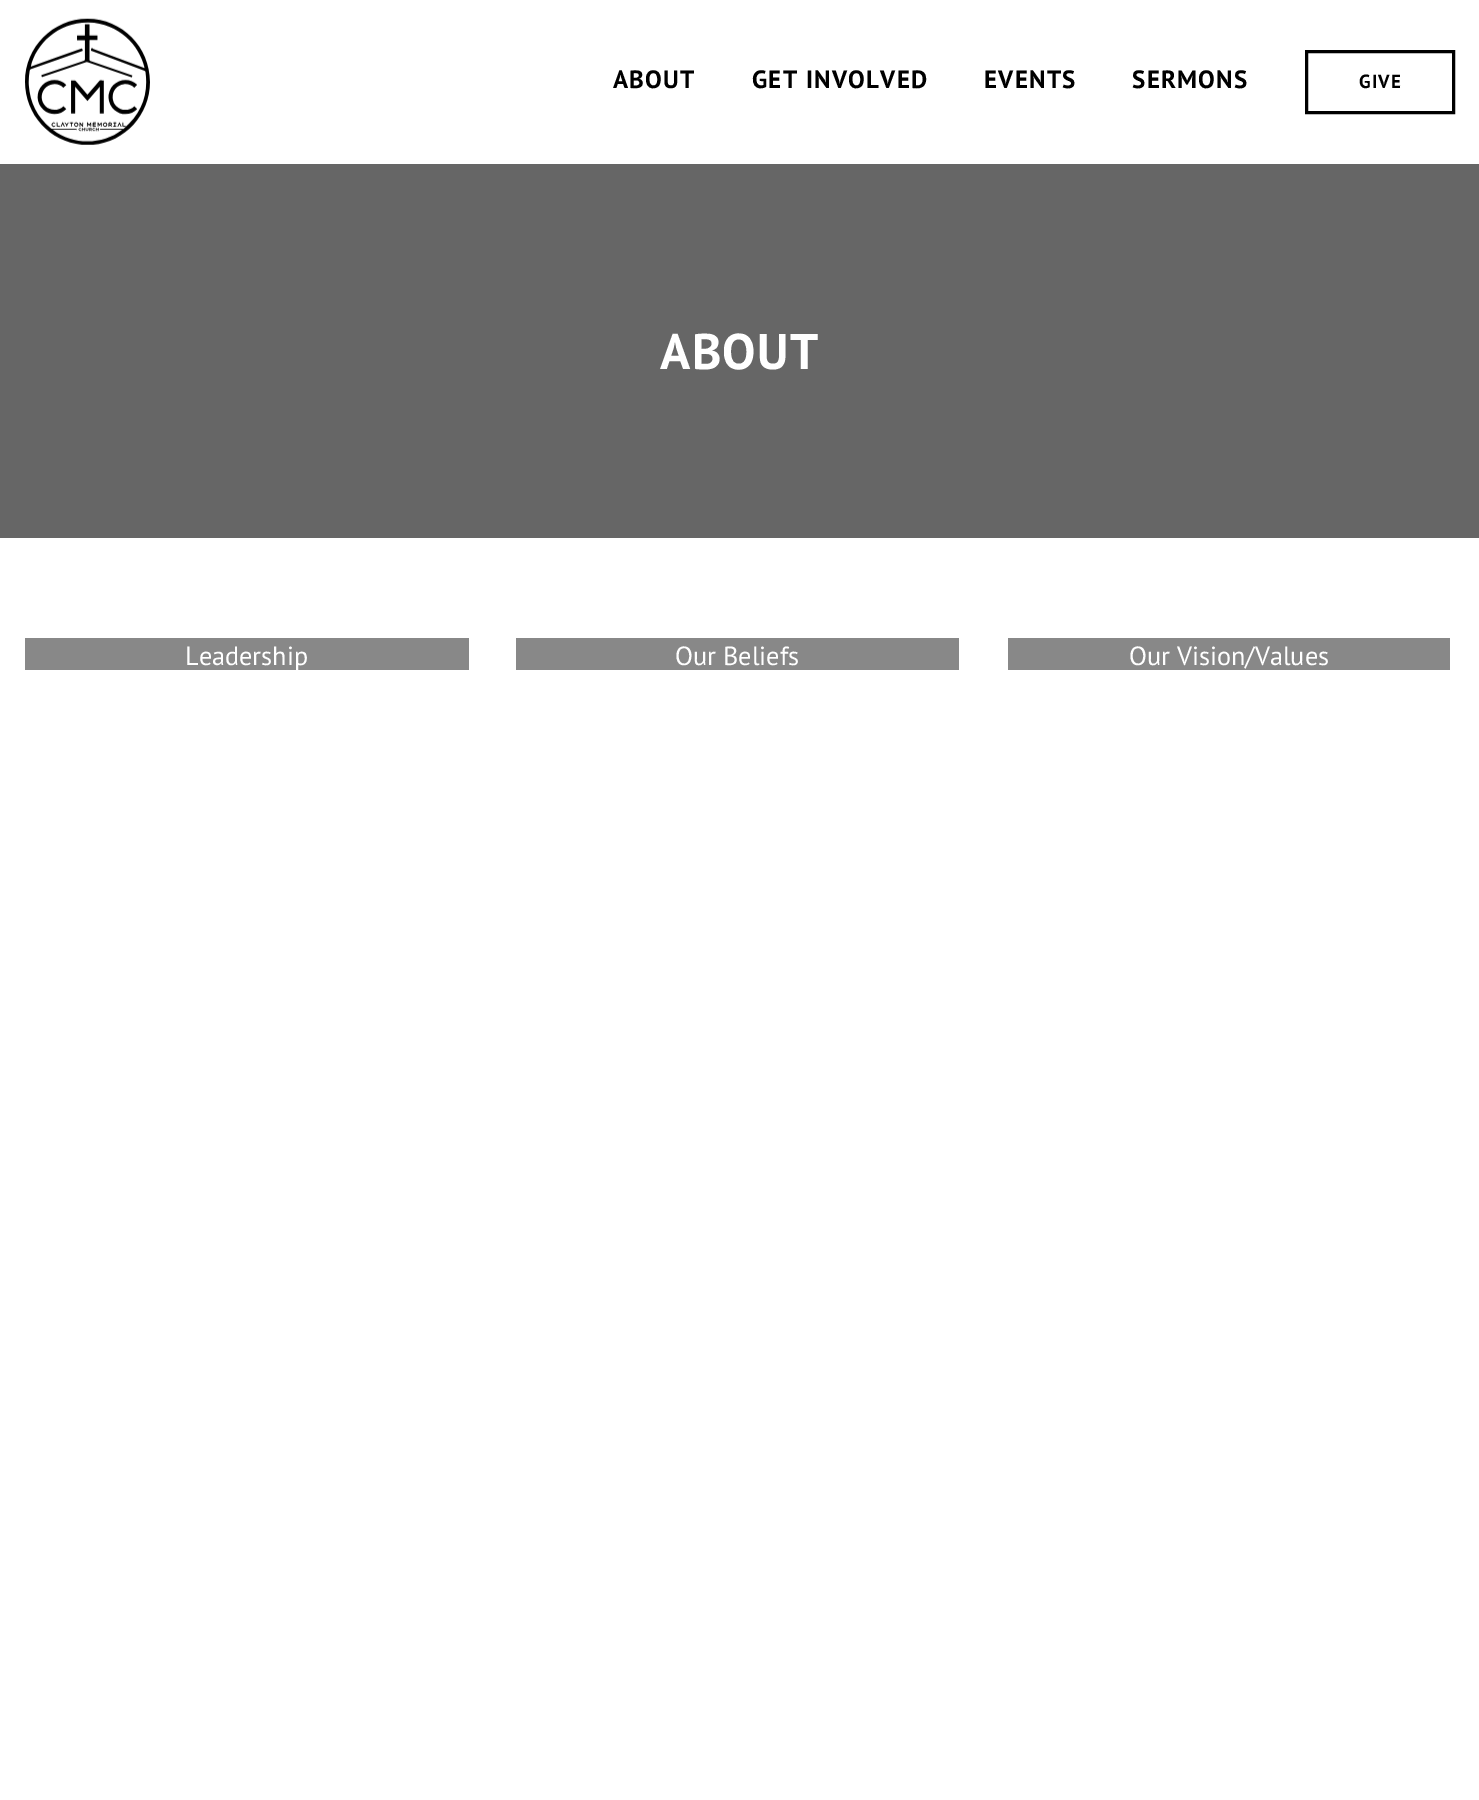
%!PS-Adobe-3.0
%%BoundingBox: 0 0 1479 1800
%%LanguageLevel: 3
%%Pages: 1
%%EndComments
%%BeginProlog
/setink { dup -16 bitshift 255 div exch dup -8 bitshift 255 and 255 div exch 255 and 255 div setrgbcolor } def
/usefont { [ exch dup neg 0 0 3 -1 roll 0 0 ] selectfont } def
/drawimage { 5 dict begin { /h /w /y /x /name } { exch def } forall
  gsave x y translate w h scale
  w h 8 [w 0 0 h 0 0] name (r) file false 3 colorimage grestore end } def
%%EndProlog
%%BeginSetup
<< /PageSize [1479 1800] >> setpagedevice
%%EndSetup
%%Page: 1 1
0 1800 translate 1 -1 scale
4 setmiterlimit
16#FFFFFF setink
0 0 1479 1800 rectfill
(img1.raw) 25 18 125 127 drawimage
/PTSans-Bold 25 usefont
16#000000 setink
613 88 moveto 1.25 0 (ABOUT) ashow
752 88 moveto 1.25 0 (GET INVOLVED) ashow
984 88 moveto 1.25 0 (EVENTS) ashow
1132 88 moveto 1.25 0 (SERMONS) ashow
3 setlinewidth
1306.5 51.5 147 61 rectstroke
/PTSans-Bold 19 usefont
1359 88 moveto 1.25 0 (GIVE) ashow
16#666666 setink
0 164 1479 374 rectfill
/PTSans-Bold 50 usefont
16#FFFFFF setink
660 369 moveto 1.25 0 (ABOUT) ashow
16#888888 setink
25 638 444 32 rectfill
/PTSans-Regular 26.25 usefont
16#FFFFFF setink
185 665 moveto (Leadership) show
16#888888 setink
516 638 443 32 rectfill
16#FFFFFF setink
675 665 moveto (Our Beliefs) show
16#888888 setink
1008 638 442 32 rectfill
16#FFFFFF setink
1129 665 moveto (Our Vision/Values) show
showpage
%%EOF
